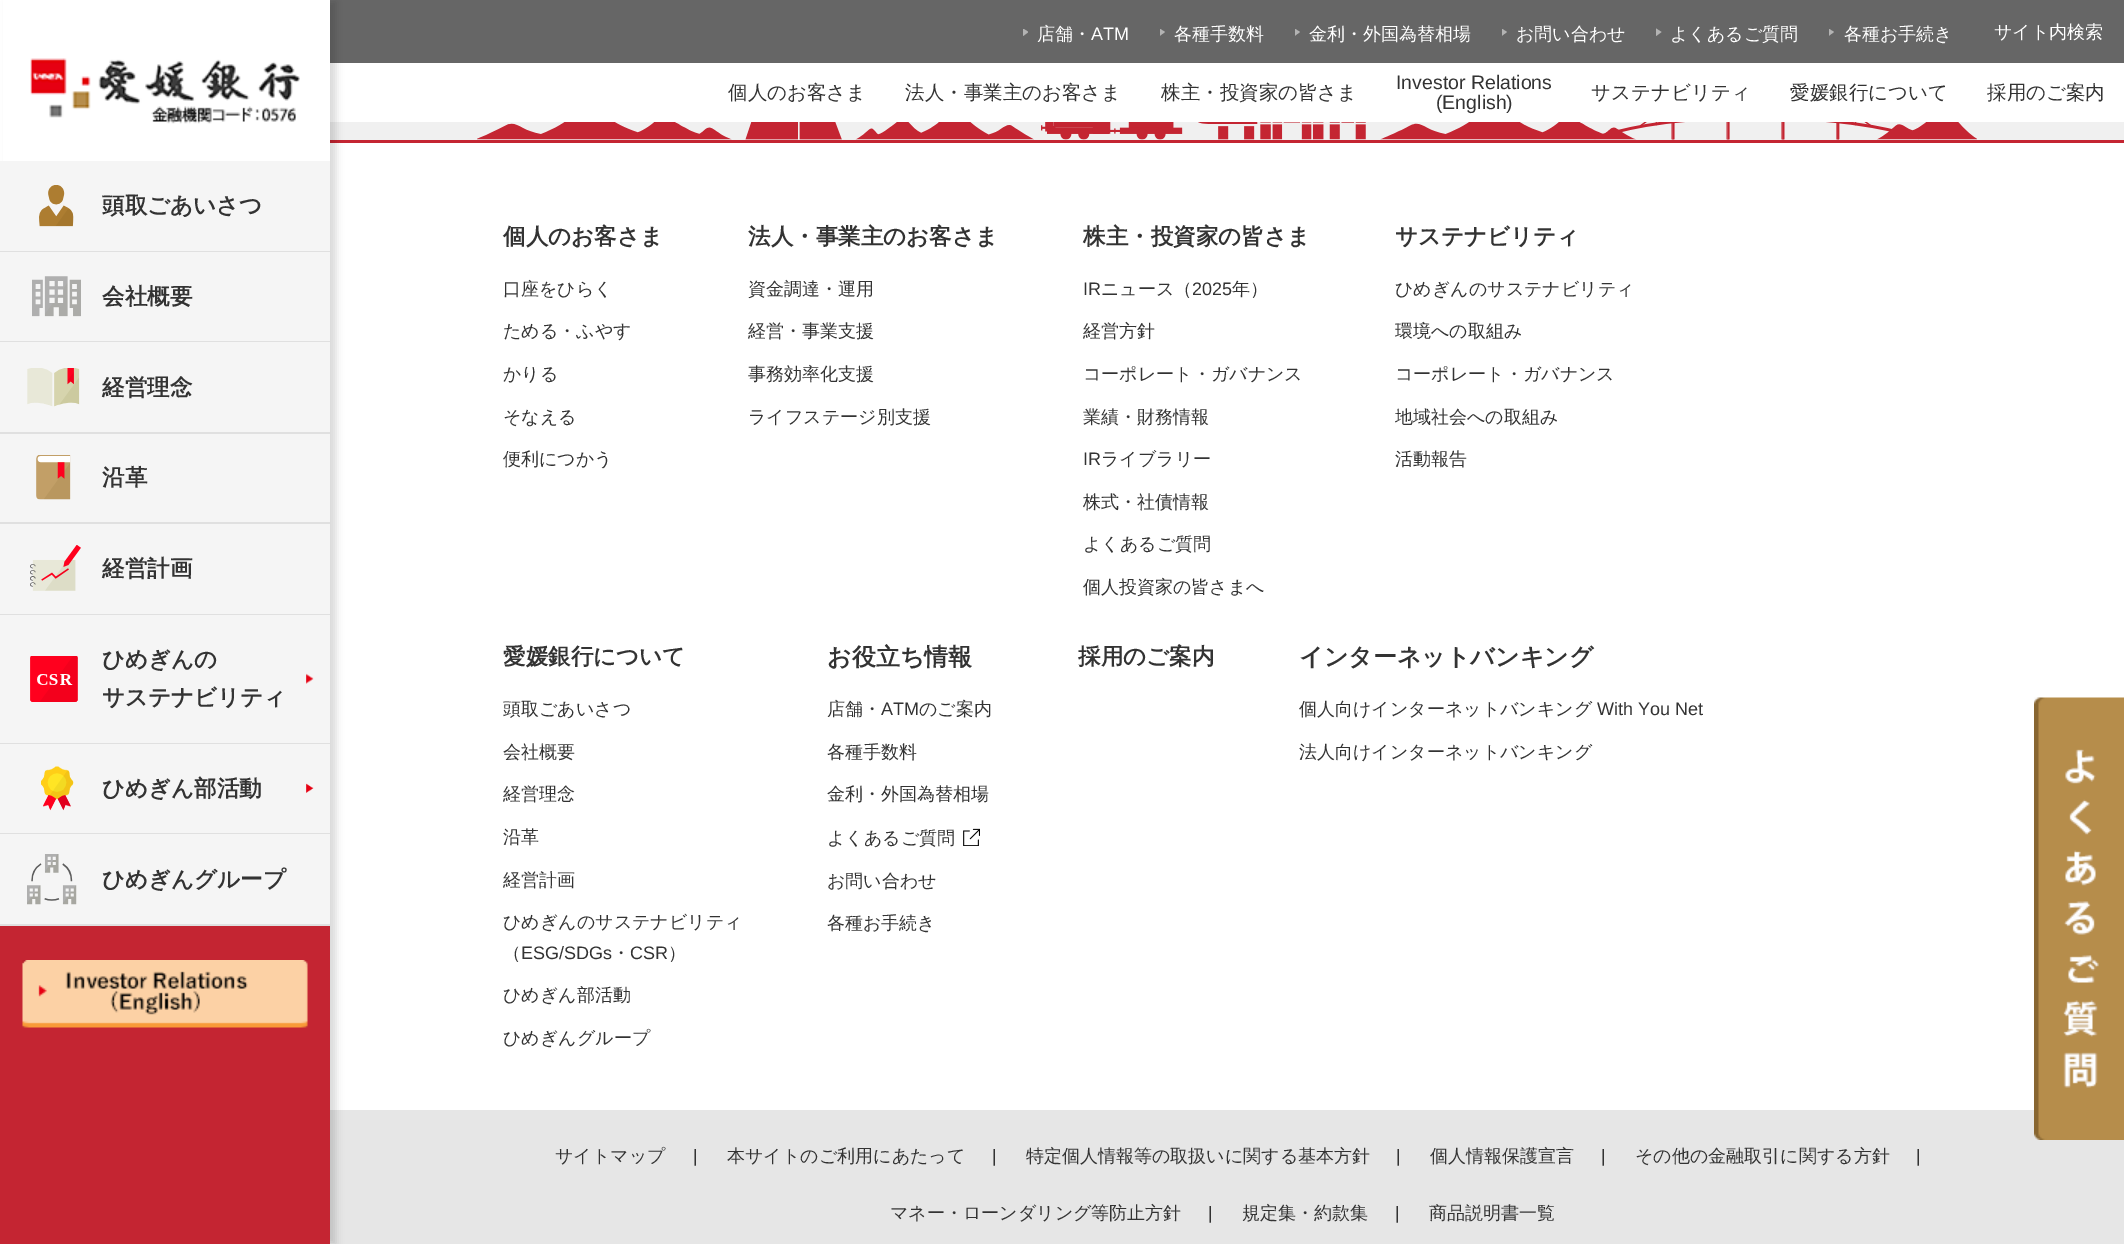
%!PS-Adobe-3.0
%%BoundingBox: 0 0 2124 1244
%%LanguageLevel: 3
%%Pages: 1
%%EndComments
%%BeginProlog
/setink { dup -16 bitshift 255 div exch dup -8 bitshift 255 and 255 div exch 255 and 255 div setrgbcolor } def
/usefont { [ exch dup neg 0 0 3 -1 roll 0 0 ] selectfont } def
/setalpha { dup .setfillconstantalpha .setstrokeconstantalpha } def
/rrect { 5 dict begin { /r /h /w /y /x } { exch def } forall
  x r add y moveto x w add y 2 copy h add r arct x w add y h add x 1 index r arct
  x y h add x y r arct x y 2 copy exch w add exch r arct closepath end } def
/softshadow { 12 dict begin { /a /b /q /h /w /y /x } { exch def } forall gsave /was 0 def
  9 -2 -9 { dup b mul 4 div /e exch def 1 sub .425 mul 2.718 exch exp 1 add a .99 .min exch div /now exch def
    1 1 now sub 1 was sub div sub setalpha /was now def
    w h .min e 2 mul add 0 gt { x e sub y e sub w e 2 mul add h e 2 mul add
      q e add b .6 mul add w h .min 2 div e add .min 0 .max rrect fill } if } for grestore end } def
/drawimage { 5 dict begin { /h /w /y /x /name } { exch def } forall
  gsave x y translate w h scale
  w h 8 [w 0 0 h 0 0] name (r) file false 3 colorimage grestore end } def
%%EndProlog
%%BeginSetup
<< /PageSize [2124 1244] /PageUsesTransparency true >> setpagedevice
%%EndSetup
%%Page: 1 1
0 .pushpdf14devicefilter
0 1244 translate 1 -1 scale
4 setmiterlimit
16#FFFFFF setink
0 0 2124 1244 rectfill
16#666666 setink
330 0 1794 63 rectfill
gsave
1023 29 5 7 rectclip
16#B3B3B3 setink
1028.5 32 moveto 1023 36 lineto 1023 28.5 lineto closepath fill
grestore
/WenQuanYiZenHei-Medium 18 usefont
16#FFFFFF setink
1037 40 moveto (店舗・) show
/LiberationSans-Regular 18 usefont
1091 40 moveto (ATM) show
gsave
1160 29 5 7 rectclip
16#B3B3B3 setink
1165 32 moveto 1159.5 36 lineto 1159.5 28.5 lineto closepath fill
grestore
/WenQuanYiZenHei-Medium 18 usefont
1174 40 moveto (各種手数料) show
gsave
1295 29 5 7 rectclip
16#B3B3B3 setink
1300 32 moveto 1294.5 36 lineto 1294.5 28.5 lineto closepath fill
grestore
1309 40 moveto (金利・外国為替相場) show
gsave
1502 29 5 7 rectclip
16#B3B3B3 setink
1507 32 moveto 1501.5 36 lineto 1501.5 28.5 lineto closepath fill
grestore
1516 40 moveto (お問い合わせ) show
16#B3B3B3 setink
1661.5 32 moveto 1656 36 lineto 1656 28.5 lineto closepath fill
16#FFFFFF setink
1670 40 moveto (よくあるご質問) show
gsave
1829 29 6 7 rectclip
16#B3B3B3 setink
1834 32 moveto 1828.5 36 lineto 1828.5 28.5 lineto closepath fill
grestore
1844 40 moveto (各種お手続き) show
1994 38 moveto (サイト内検索) show
/WenQuanYiZenHei-Medium 19.5 usefont
16#333333 setink
[
    [(個人のお客さま) 728 99]
    [(法人・事業主のお客さま) 905 99]
    [(株主・投資家の皆さま) 1161 99]
] { aload pop moveto show } forall
/LiberationSans-Regular 19.5 usefont
1396 89 moveto (Investor Relations) show
1436 109 moveto (\(English\)) show
/WenQuanYiZenHei-Medium 19.5 usefont
[
    [(サステナビリティ) 1591 99]
    [(愛媛銀行について) 1790 99]
    [(採用のご案内) 1987 99]
] { aload pop moveto show } forall
[
    [330 122 1794 18 16#F0F0F0]
    [330 140 1794 3 16#C42532]
    [330 1110 1794 134 16#E6E6E6]
] { aload pop setink rectfill } forall
16#000000 setink
9 2 327 1242 0 4 0.15 softshadow
16#C42532 setink
0 926 330 318 rectfill
16#FFFFFF setink
3 0 327 161 rectfill
(img1.raw) 30 58 270 66 drawimage
16#E0E0E0 setink
0 251 330 1 rectfill
16#F5F5F5 setink
0 161 330 90 rectfill
(img2.raw) 39 185 35 42 drawimage
/WenQuanYiZenHei-Bold 22.5 usefont
16#333333 setink
102 213 moveto (頭取ごあいさつ) show
16#E0E0E0 setink
0 341 330 1 rectfill
16#F5F5F5 setink
0 252 330 89 rectfill
(img3.raw) 32 276 49 41 drawimage
16#333333 setink
102 304 moveto (会社概要) show
16#E0E0E0 setink
0 432 330 2 rectfill
16#F5F5F5 setink
0 342 330 90 rectfill
(img4.raw) 27 368 53 39 drawimage
16#333333 setink
102 395 moveto (経営理念) show
16#E0E0E0 setink
0 522 330 2 rectfill
16#F5F5F5 setink
0 434 330 88 rectfill
(img5.raw) 36 455 35 45 drawimage
16#333333 setink
102 485 moveto (沿革) show
16#E0E0E0 setink
0 614 330 1 rectfill
16#F5F5F5 setink
0 524 330 90 rectfill
(img6.raw) 30 545 51 46 drawimage
16#333333 setink
102 576 moveto (経営計画) show
16#E0E0E0 setink
0 743 330 1 rectfill
16#F5F5F5 setink
0 615 330 128 rectfill
(img7.raw) 306 673 8 11 drawimage
(img9.raw) 30 656 48 46 drawimage
(img8.raw) 30 656 48 46 drawimage
16#333333 setink
102 667 moveto (ひめぎんの) show
102 705 moveto (サステナビリティ) show
16#E0E0E0 setink
0 833 330 1 rectfill
16#F5F5F5 setink
0 744 330 89 rectfill
(img10.raw) 306 783 8 10 drawimage
(img12.raw) 41 766 33 45 drawimage
(img11.raw) 41 767 33 43 drawimage
16#333333 setink
102 796 moveto (ひめぎん部活動) show
16#E0E0E0 setink
0 924 330 2 rectfill
16#F5F5F5 setink
0 834 330 90 rectfill
(img13.raw) 27 854 50 51 drawimage
16#333333 setink
102 887 moveto (ひめぎんグループ) show
(img14.raw) 22 960 286 68 drawimage
(img15.raw) 477 122 1500 18 drawimage
503 244 moveto (個人のお客さま) show
/WenQuanYiZenHei-Medium 18 usefont
[
    [(口座をひらく) 503 295]
    [(ためる・ふやす) 503 337]
    [(かりる) 503 380]
    [(そなえる) 503 423]
    [(便利につかう) 503 465]
] { aload pop moveto show } forall
/WenQuanYiZenHei-Bold 22.5 usefont
748 244 moveto (法人・事業主のお客さま) show
/WenQuanYiZenHei-Medium 18 usefont
[
    [(資金調達・運用) 748 295]
    [(経営・事業支援) 748 337]
    [(事務効率化支援) 748 380]
    [(ライフステージ別支援) 748 423]
] { aload pop moveto show } forall
/WenQuanYiZenHei-Bold 22.5 usefont
1083 244 moveto (株主・投資家の皆さま) show
/LiberationSans-Regular 18 usefont
1083 295 moveto (IR) show
/WenQuanYiZenHei-Medium 18 usefont
1101 295 moveto (ニュース（) show
/LiberationSans-Regular 18 usefont
1192 295 moveto (2025) show
/WenQuanYiZenHei-Medium 18 usefont
[
    [(年）) 1232 295]
    [(経営方針) 1083 337]
    [(コーポレート・ガバナンス) 1083 380]
    [(業績・財務情報) 1083 423]
] { aload pop moveto show } forall
/LiberationSans-Regular 18 usefont
1083 465 moveto (IR) show
/WenQuanYiZenHei-Medium 18 usefont
[
    [(ライブラリー) 1101 465]
    [(株式・社債情報) 1083 508]
    [(よくあるご質問) 1083 550]
    [(個人投資家の皆さまへ) 1083 593]
] { aload pop moveto show } forall
/WenQuanYiZenHei-Bold 22.5 usefont
1395 244 moveto (サステナビリティ) show
/WenQuanYiZenHei-Medium 18 usefont
[
    [(ひめぎんのサステナビリティ) 1395 295]
    [(環境への取組み) 1395 337]
    [(コーポレート・ガバナンス) 1395 380]
    [(地域社会への取組み) 1395 423]
    [(活動報告) 1395 465]
] { aload pop moveto show } forall
/WenQuanYiZenHei-Bold 22.5 usefont
503 664 moveto (愛媛銀行について) show
/WenQuanYiZenHei-Medium 18 usefont
[
    [(頭取ごあいさつ) 503 715]
    [(会社概要) 503 758]
    [(経営理念) 503 800]
    [(沿革) 503 843]
    [(経営計画) 503 886]
    [(ひめぎんのサステナビリティ) 503 928]
    [(（) 503 959]
] { aload pop moveto show } forall
/LiberationSans-Regular 18 usefont
521 959 moveto (ESG/SDGs) show
/WenQuanYiZenHei-Medium 18 usefont
612 959 moveto (・) show
/LiberationSans-Regular 18 usefont
630 959 moveto (CSR) show
/WenQuanYiZenHei-Medium 18 usefont
[
    [(）) 668 959]
    [(ひめぎん部活動) 503 1001]
    [(ひめぎんグループ) 503 1044]
] { aload pop moveto show } forall
/WenQuanYiZenHei-Bold 24 usefont
827 665 moveto (お役立ち情報) show
/WenQuanYiZenHei-Medium 18 usefont
827 715 moveto (店舗・) show
/LiberationSans-Regular 18 usefont
881 715 moveto (ATM) show
/WenQuanYiZenHei-Medium 18 usefont
[
    [(のご案内) 919 715]
    [(各種手数料) 827 758]
    [(金利・外国為替相場) 827 800]
    [(よくあるご質問) 827 844]
] { aload pop moveto show } forall
(img16.raw) 963 828 17 18 drawimage
827 887 moveto (お問い合わせ) show
827 929 moveto (各種お手続き) show
/WenQuanYiZenHei-Bold 22.5 usefont
1078 664 moveto (採用のご案内) show
/WenQuanYiZenHei-Bold 24 usefont
1299 665 moveto (インターネットバンキング) show
/WenQuanYiZenHei-Medium 18 usefont
1299 715 moveto (個人向けインターネットバンキング) show
/LiberationSans-Regular 18 usefont
1597 715 moveto (With You Net) show
/WenQuanYiZenHei-Medium 18 usefont
1299 758 moveto (法人向けインターネットバンキング) show
(img17.raw) 2034 697 90 443 drawimage
555 1162 moveto (サイトマップ) show
/LiberationSans-Regular 18 usefont
693 1162 moveto (|) show
/WenQuanYiZenHei-Medium 18 usefont
727 1162 moveto (本サイトのご利用にあたって) show
/LiberationSans-Regular 18 usefont
992 1162 moveto (|) show
/WenQuanYiZenHei-Medium 18 usefont
1026 1162 moveto (特定個人情報等の取扱いに関する基本方針) show
/LiberationSans-Regular 18 usefont
1396 1162 moveto (|) show
/WenQuanYiZenHei-Medium 18 usefont
1430 1162 moveto (個人情報保護宣言) show
/LiberationSans-Regular 18 usefont
1601 1162 moveto (|) show
/WenQuanYiZenHei-Medium 18 usefont
1635 1162 moveto (その他の金融取引に関する方針) show
/LiberationSans-Regular 18 usefont
1916 1162 moveto (|) show
/WenQuanYiZenHei-Medium 18 usefont
890 1219 moveto (マネー・ローンダリング等防止方針) show
/LiberationSans-Regular 18 usefont
1208 1219 moveto (|) show
/WenQuanYiZenHei-Medium 18 usefont
1242 1219 moveto (規定集・約款集) show
/LiberationSans-Regular 18 usefont
1395 1219 moveto (|) show
/WenQuanYiZenHei-Medium 18 usefont
1429 1219 moveto (商品説明書一覧) show
.poppdf14devicefilter showpage
%%EOF
